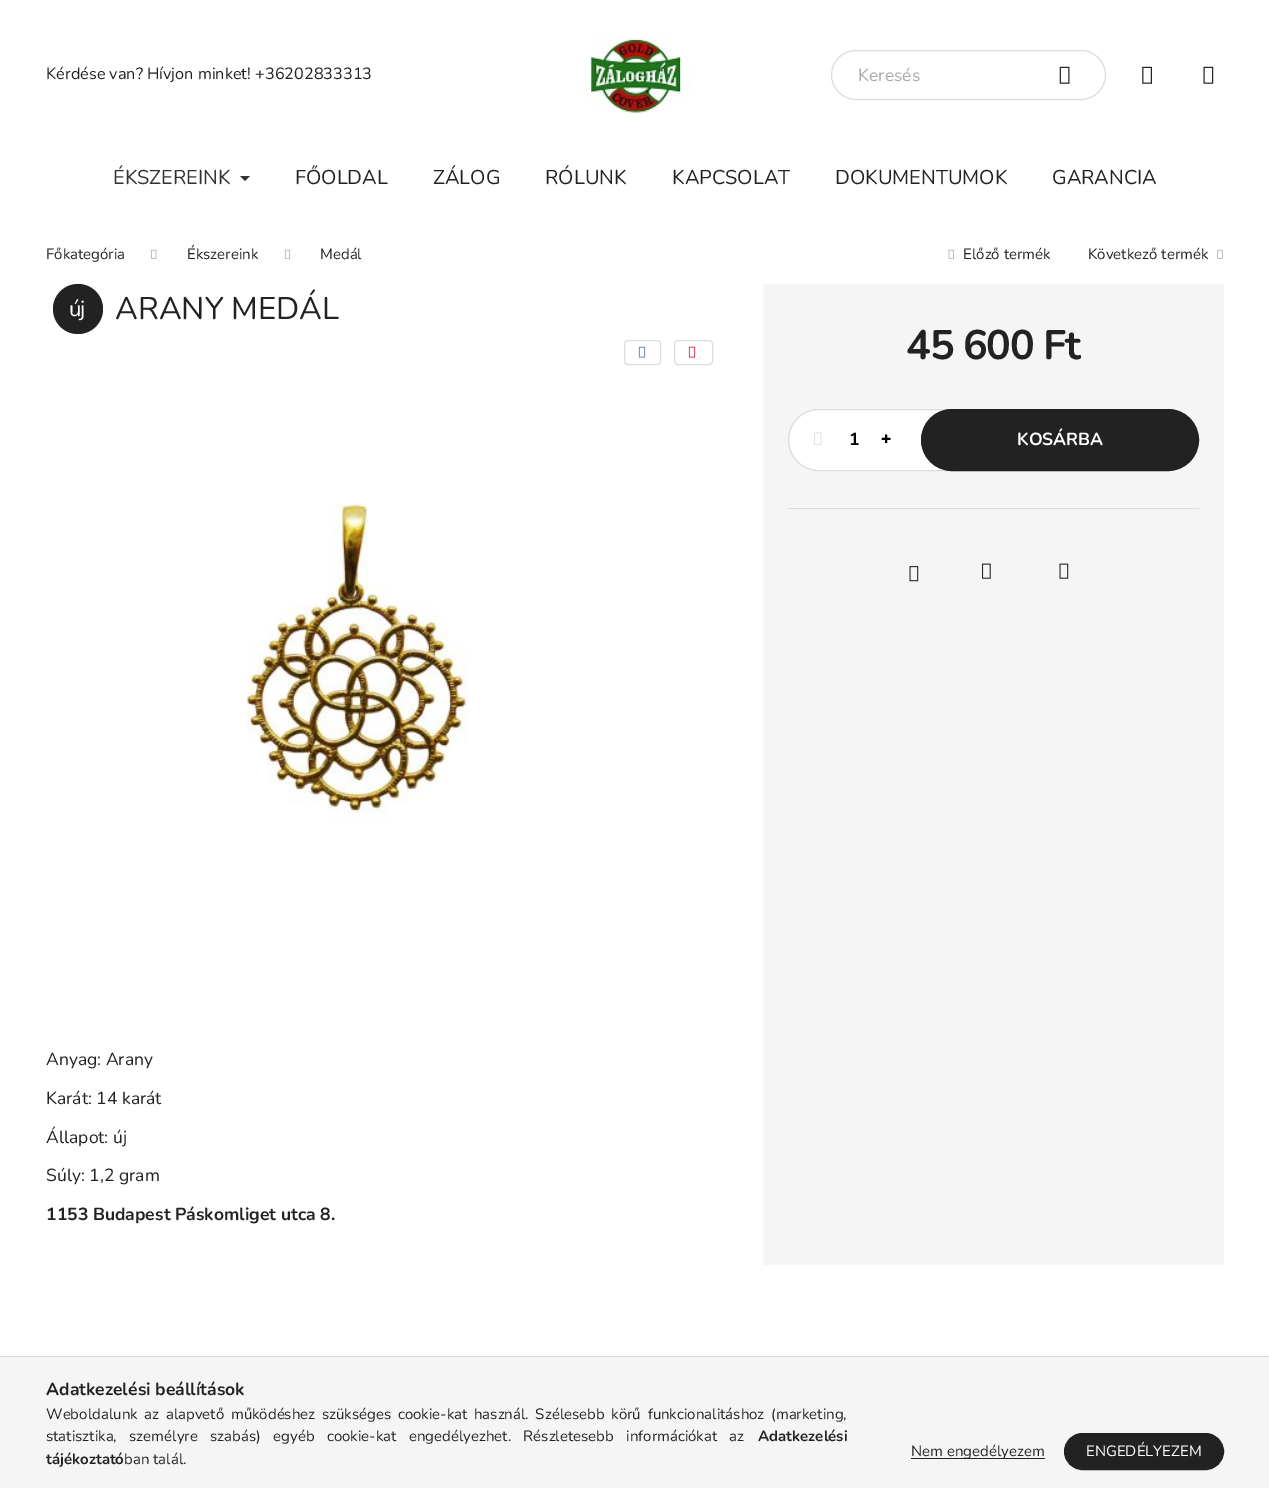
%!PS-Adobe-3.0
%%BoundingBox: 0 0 1269 1488
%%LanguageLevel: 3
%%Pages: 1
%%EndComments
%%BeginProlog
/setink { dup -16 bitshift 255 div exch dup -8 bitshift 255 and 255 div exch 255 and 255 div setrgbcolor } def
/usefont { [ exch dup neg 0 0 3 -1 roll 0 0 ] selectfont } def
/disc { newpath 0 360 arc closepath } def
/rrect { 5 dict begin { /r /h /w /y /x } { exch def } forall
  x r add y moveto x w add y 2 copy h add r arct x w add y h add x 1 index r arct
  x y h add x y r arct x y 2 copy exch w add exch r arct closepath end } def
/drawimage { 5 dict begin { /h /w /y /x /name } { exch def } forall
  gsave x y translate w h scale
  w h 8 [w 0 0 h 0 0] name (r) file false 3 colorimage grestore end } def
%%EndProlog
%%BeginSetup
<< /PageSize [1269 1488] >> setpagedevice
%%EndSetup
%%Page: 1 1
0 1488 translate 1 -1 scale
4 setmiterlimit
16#FFFFFF setink
0 0 1269 1488 rectfill
/Nunito-Regular 16.25 usefont
16#222222 setink
46 79 moveto (Kérdése van? Hívjon minket! +36202833313) show
(img1.raw) 582 37 110 76 drawimage
16#DDDDDD setink
831.5 50.5 274 49 24.5 rrect stroke
/Nunito-Regular 17.5 usefont
16#AAAAAA setink
858 81 moveto (Keresés) show
(img2.raw) 1059 66 11 18 drawimage
(img3.raw) 1142 66 10 18 drawimage
(img4.raw) 1203 66 11 18 drawimage
/Nunito-Regular 20 usefont
16#333333 setink
113 184 moveto (ÉKSZEREINK) show
240 176 moveto 250 176 lineto 245 181 lineto closepath fill
16#222222 setink
[
    [(FŐOLDAL) 295 184]
    [(ZÁLOG) 433 184]
    [(RÓLUNK) 545 184]
    [(KAPCSOLAT) 672 184]
    [(DOKUMENTUMOK) 835 184]
    [(GARANCIA) 1052 184]
] { aload pop moveto show } forall
/Nunito-Regular 15 usefont
46 259 moveto (Főkategória) show
(img5.raw) 151 249 6 10 drawimage
187 259 moveto (Ékszereink) show
(img6.raw) 284 249 7 10 drawimage
320 259 moveto (Medál) show
(img7.raw) 948 249 6 10 drawimage
963 259 moveto (Előző termék) show
1088 259 moveto (Következő termék) show
(img8.raw) 1217 249 6 10 drawimage
78 309 25 disc fill
/Nunito-Regular 22 usefont
16#FFFFFF setink
69 316 moveto -1 0 (új) ashow
/Nunito-Regular 31.25 usefont
16#222222 setink
115 319 moveto (ARANY MEDÁL) show
16#DDDDDD setink
624.5 340.5 36 24 3.5 rrect stroke
(img9.raw) 638 346 8 12 drawimage
674.5 340.5 38 24 3.5 rrect stroke
(img10.raw) 688 346 8 12 drawimage
(img11.raw) 246 503 222 321 drawimage
/Nunito-Regular 17.5 usefont
16#222222 setink
[
    [(Anyag: Arany) 46 1065]
    [(Karát: 14 karát) 46 1104]
    [(Állapot: új) 46 1143]
    [(Súly: 1,2 gram) 46 1181]
] { aload pop moveto show } forall
/Nunito-Bold 17.5 usefont
46 1220 moveto (1153 Budapest Páskomliget utca 8.) show
16#F5F5F5 setink
763 284 461 981 rectfill
/Nunito-Bold 41.25 usefont
16#222222 setink
906 359 moveto -1.25 0 (45 600 Ft) ashow
16#FFFFFF setink
819 409.5 moveto 958.5 409.5 lineto 958.5 470.5 lineto 819 470.5 lineto 802 470.5 788.5 457 788.5 440 curveto 788.5 423 802 409.5 819 409.5 curveto closepath gsave fill grestore
16#DDDDDD setink
stroke
(img12.raw) 814 432 8 13 drawimage
/Nunito-Bold 17.5 usefont
16#000000 setink
849 445 moveto (1) show
/NotoSans-Black 17.5 usefont
881 445 moveto (+) show
16#222222 setink
921.5 409.5 277 61 30.5 rrect gsave fill grestore
stroke
/Nunito-Bold 17.5 usefont
16#FFFFFF setink
1017 445 moveto (KOSÁRBA) show
16#DDDDDD setink
788 508 411 1 rectfill
(img13.raw) 909 566 10 16 drawimage
(img14.raw) 982 563 9 16 drawimage
(img15.raw) 1059 563 10 16 drawimage
16#F5F5F5 setink
0 1357 1269 131 rectfill
16#DDDDDD setink
0 1356 1269 1 rectfill
16#222222 setink
46 1395 moveto (Adatkezelési beállítások) show
/Nunito-Regular 15 usefont
46 1419 moveto 2.75 0 32 (Weboldalunk az alapvető működéshez szükséges cookie-kat használ. Szélesebb körű funkcionalitáshoz \(marketing,) widthshow
46 1441 moveto 8.5 0 32 (statisztika, személyre szabás\) egyéb cookie-kat engedélyezhet. Részletesebb információkat az) widthshow
/Nunito-Bold 15 usefont
758 1441 moveto (Adatkezelési) show
46 1464 moveto (tájékoztató) show
/Nunito-Regular 15 usefont
124 1464 moveto (ban talál.) show
911 1458 134 1 rectfill
911 1456 moveto (Nem engedélyezem) show
1064.5 1433.5 159 36 18 rrect gsave fill grestore
stroke
16#FFFFFF setink
1086 1456 moveto (ENGEDÉLYEZEM) show
showpage
%%EOF
